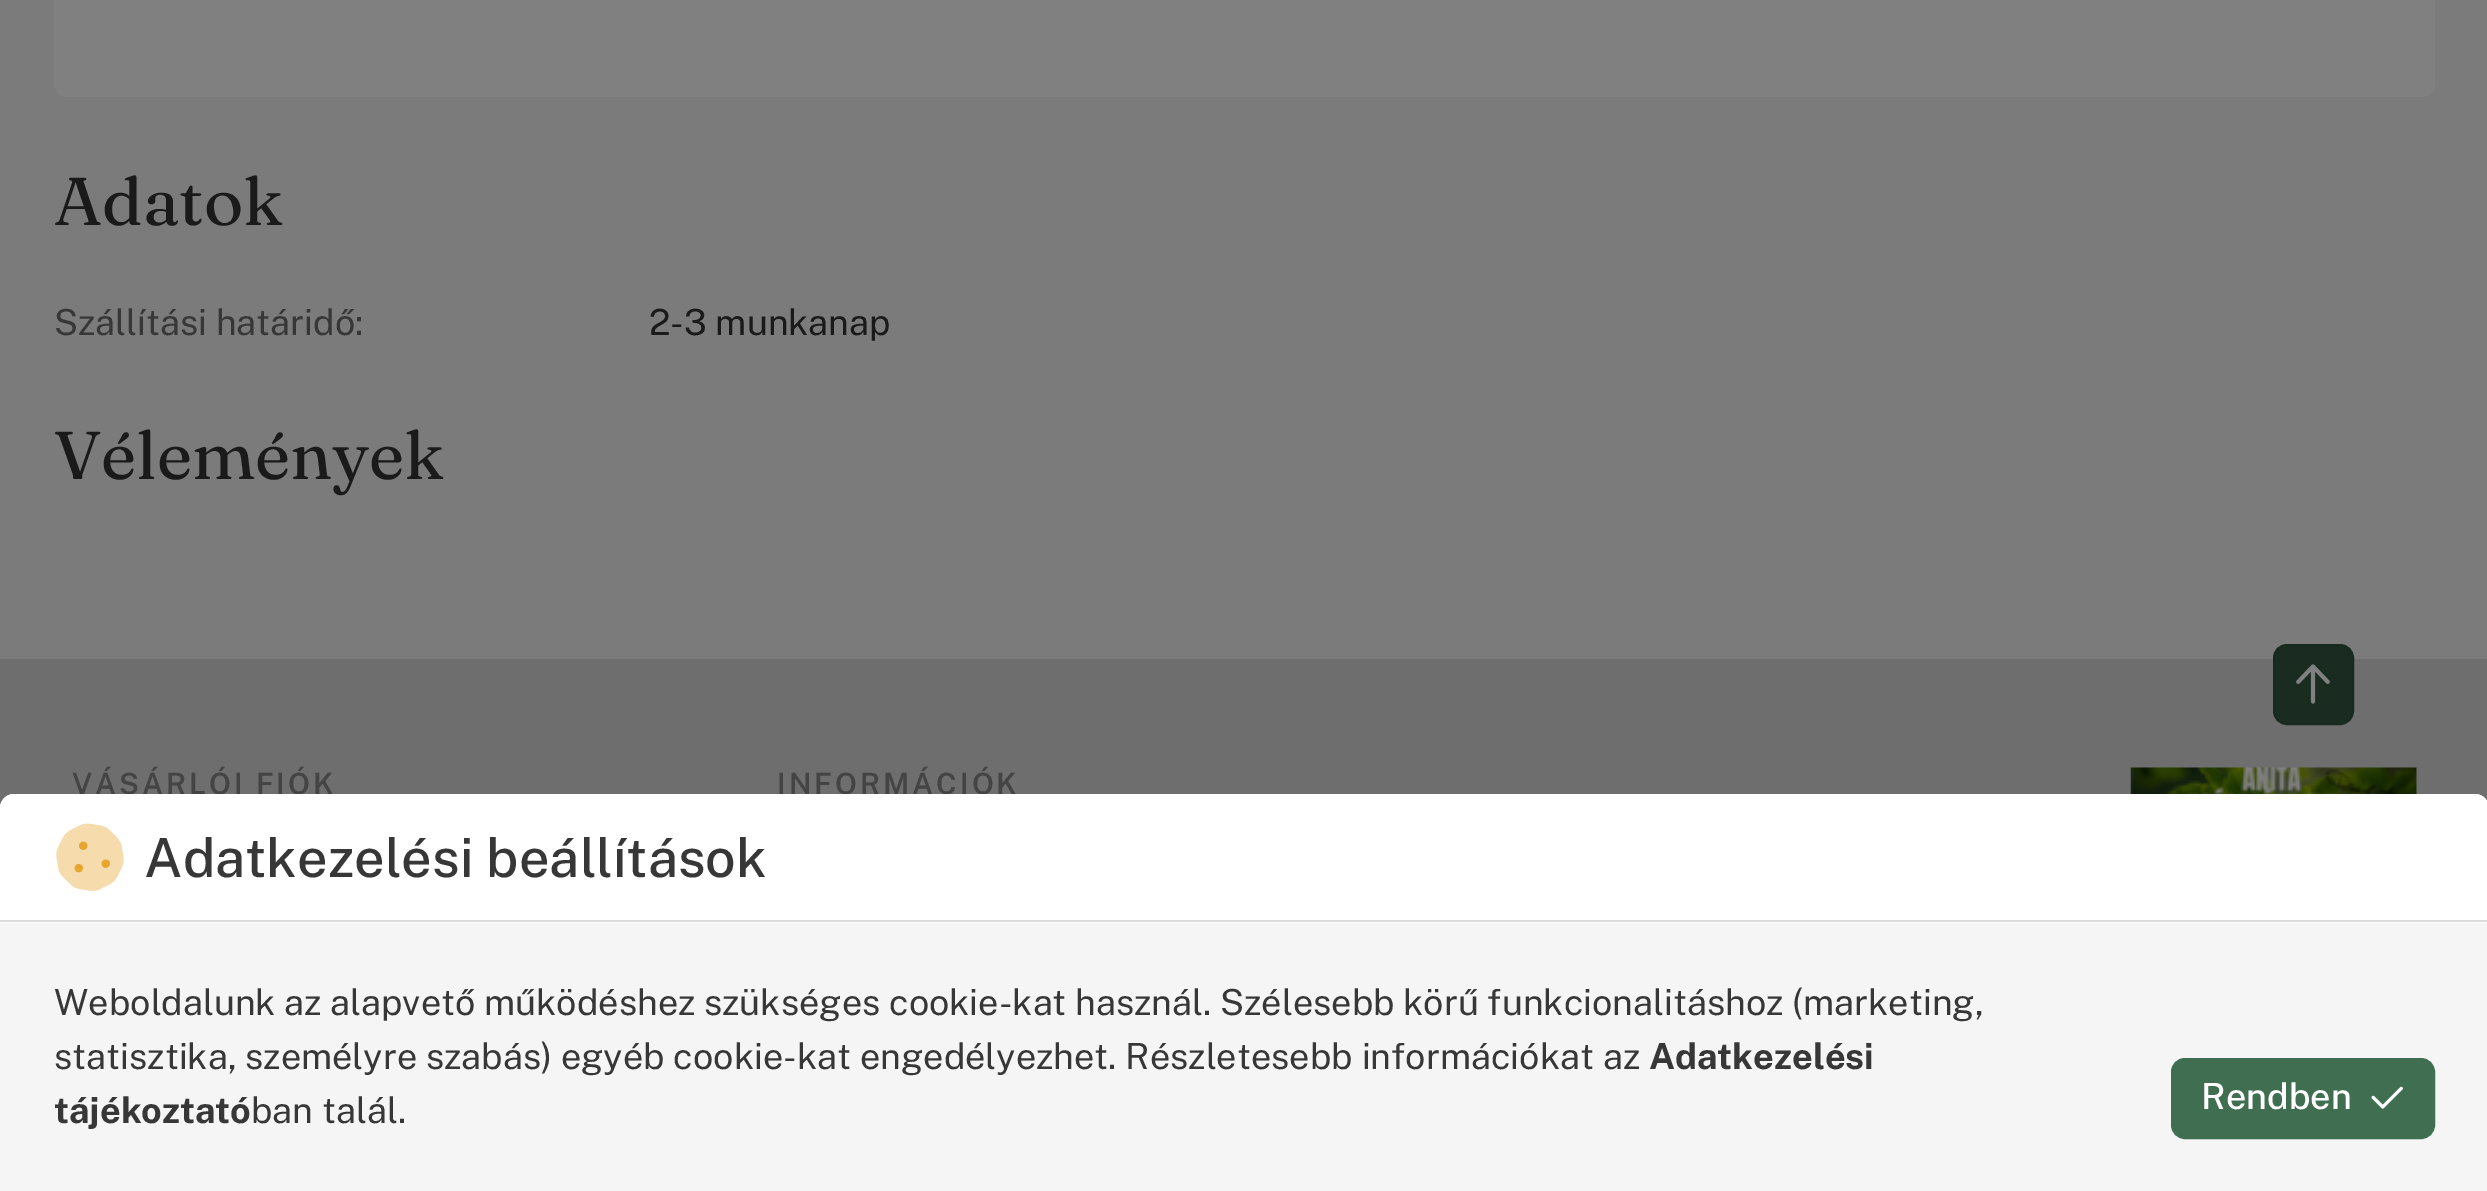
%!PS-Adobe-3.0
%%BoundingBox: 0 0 2487 1191
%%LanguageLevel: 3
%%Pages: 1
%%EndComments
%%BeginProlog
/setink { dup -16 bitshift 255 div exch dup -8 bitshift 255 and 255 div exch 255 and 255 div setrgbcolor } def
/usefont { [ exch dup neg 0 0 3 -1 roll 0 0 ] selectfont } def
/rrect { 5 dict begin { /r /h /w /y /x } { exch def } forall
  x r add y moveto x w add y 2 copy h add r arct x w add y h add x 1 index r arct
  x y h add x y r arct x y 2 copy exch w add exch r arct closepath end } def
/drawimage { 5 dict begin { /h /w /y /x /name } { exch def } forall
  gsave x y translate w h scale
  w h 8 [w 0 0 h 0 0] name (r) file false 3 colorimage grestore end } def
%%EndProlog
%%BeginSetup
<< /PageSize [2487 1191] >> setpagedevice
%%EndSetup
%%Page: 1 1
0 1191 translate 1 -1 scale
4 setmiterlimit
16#7B7B7B setink
0 0 2487 1191 rectfill
16#808080 setink
54 -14 2381 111 14 rrect fill
/Fraunces-Regular 67.5 usefont
16#1A1A1A setink
54 225 moveto (Adatok) show
/PublicSans-Regular 36 usefont
16#373737 setink
54 335 moveto (Szállítási határidő:) show
16#1A1A1A setink
649 335 moveto (2-3 munkanap) show
/Fraunces-Regular 67.5 usefont
54 479 moveto (Vélemények) show
16#6E6E6E setink
0 659 2487 149 rectfill
16#1A2C21 setink
2274 645 79 79 13 rrect gsave fill grestore
16#182A1F setink
2 setlinewidth
stroke
(img1.raw) 2296 664 34 40 drawimage
/PublicSans-SemiBold 29.25 usefont
16#444444 setink
72 794 moveto 3 0 (VÁSÁRLÓI FIÓK) ashow
777 794 moveto 3 0 (INFORMÁCIÓK) ashow
(img2.raw) 2130 767 287 27 drawimage
16#F5F5F5 setink
14 794 moveto 2475 794 lineto 2482.5 794 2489 800.5 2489 808 curveto 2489 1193 lineto 0 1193 lineto 0 808 lineto 0 800.5 6.5 794 14 794 curveto closepath fill
16#FFFFFF setink
14 794 moveto 2475 794 lineto 2482.5 794 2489 800.5 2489 808 curveto 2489 923 lineto 0 923 lineto 0 808 lineto 0 800.5 6.5 794 14 794 curveto closepath fill
16#DBDBDB setink
0 920 2487 2 rectfill
(img3.raw) 56 823 68 68 drawimage
/PublicSans-Medium 54 usefont
16#373737 setink
144 877 moveto (Adatkezelési beállítások) show
/PublicSans-Regular 36 usefont
54 1015 moveto (Weboldalunk az alapvető működéshez szükséges cookie-kat használ. Szélesebb körű funkcionalitáshoz \(marketing,) show
54 1069 moveto (statisztika, személyre szabás\) egyéb cookie-kat engedélyezhet. Részletesebb információkat az) show
/PublicSans-Bold 36 usefont
1649 1069 moveto (Adatkezelési) show
54 1123 moveto (tájékoztató) show
/PublicSans-Regular 36 usefont
251 1123 moveto (ban talál.) show
16#406E51 setink
2172 1059 262 79 13 rrect gsave fill grestore
stroke
/PublicSans-Medium 36 usefont
16#FFFFFF setink
2201 1109 moveto (Rendben) show
(img4.raw) 2371 1086 32 23 drawimage
showpage
%%EOF
